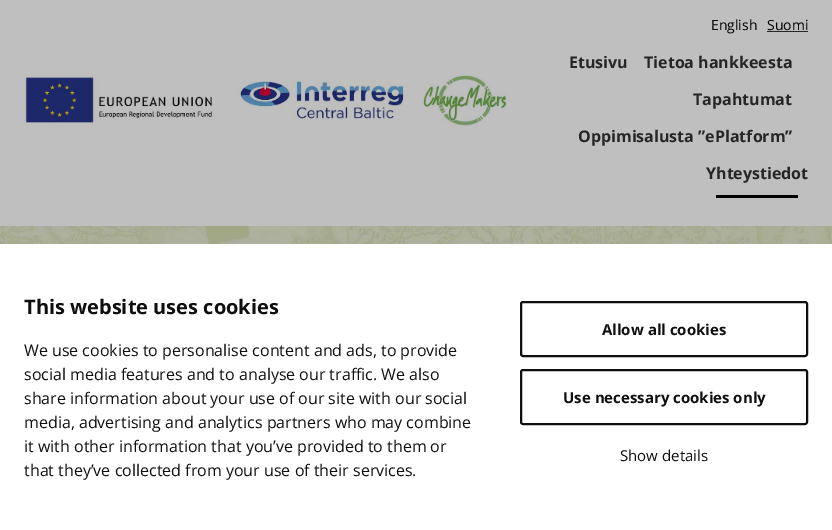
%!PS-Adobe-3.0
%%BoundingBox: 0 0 832 530
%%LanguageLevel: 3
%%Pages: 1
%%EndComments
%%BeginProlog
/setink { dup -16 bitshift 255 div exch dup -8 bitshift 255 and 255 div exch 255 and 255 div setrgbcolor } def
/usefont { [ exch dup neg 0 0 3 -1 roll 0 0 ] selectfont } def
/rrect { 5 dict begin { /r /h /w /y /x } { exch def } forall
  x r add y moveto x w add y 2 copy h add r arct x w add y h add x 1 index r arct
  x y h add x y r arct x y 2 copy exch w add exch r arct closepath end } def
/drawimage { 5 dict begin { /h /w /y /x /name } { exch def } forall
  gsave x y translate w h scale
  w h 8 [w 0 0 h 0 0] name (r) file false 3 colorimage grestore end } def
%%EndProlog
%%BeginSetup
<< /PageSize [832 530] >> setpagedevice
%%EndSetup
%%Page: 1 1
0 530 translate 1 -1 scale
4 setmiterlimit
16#BFBFBF setink
0 0 832 530 rectfill
(img1.raw) 24 73 484 55 drawimage
/OpenSans-Regular 14 usefont
16#000000 setink
711 30 moveto (English) show
767 30 moveto (Suomi) show
16#262626 setink
767 31 41 1 rectfill
/OpenSans-Bold 16 usefont
[
    [(Etusivu) 569 68]
    [(Tietoa hankkeesta) 644 68]
    [(Tapahtumat) 693 105]
    [(Oppimisalusta ”ePlatform”) 578 142]
    [(Yhteystiedot) 706 179]
] { aload pop moveto show } forall
16#000000 setink
716 195 82 3 rectfill
(img2.raw) 0 226 832 18 drawimage
16#FFFFFF setink
0 244 832 286 rectfill
/OpenSans-Bold 20 usefont
16#0F0F0F setink
24 314 moveto (This website uses cookies) show
/OpenSans-Regular 16 usefont
[
    [(We use cookies to personalise content and ads, to provide) 24 356]
    [(social media features and to analyse our traffic. We also) 24 380]
    [(share information about your use of our site with our social) 24 404]
    [(media, advertising and analytics partners who may combine) 24 428]
    [(it with other information that you’ve provided to them or) 24 452]
    [(that they’ve collected from your use of their services.) 24 476]
] { aload pop moveto show } forall
2 setlinewidth
521 302 286 54 2 rrect stroke
/OpenSans-Bold 15 usefont
602 335 moveto (Allow all cookies) show
521 370 286 54 2 rrect stroke
563 403 moveto (Use necessary cookies only) show
/OpenSans-Regular 15 usefont
620 461 moveto (Show details) show
showpage
%%EOF
